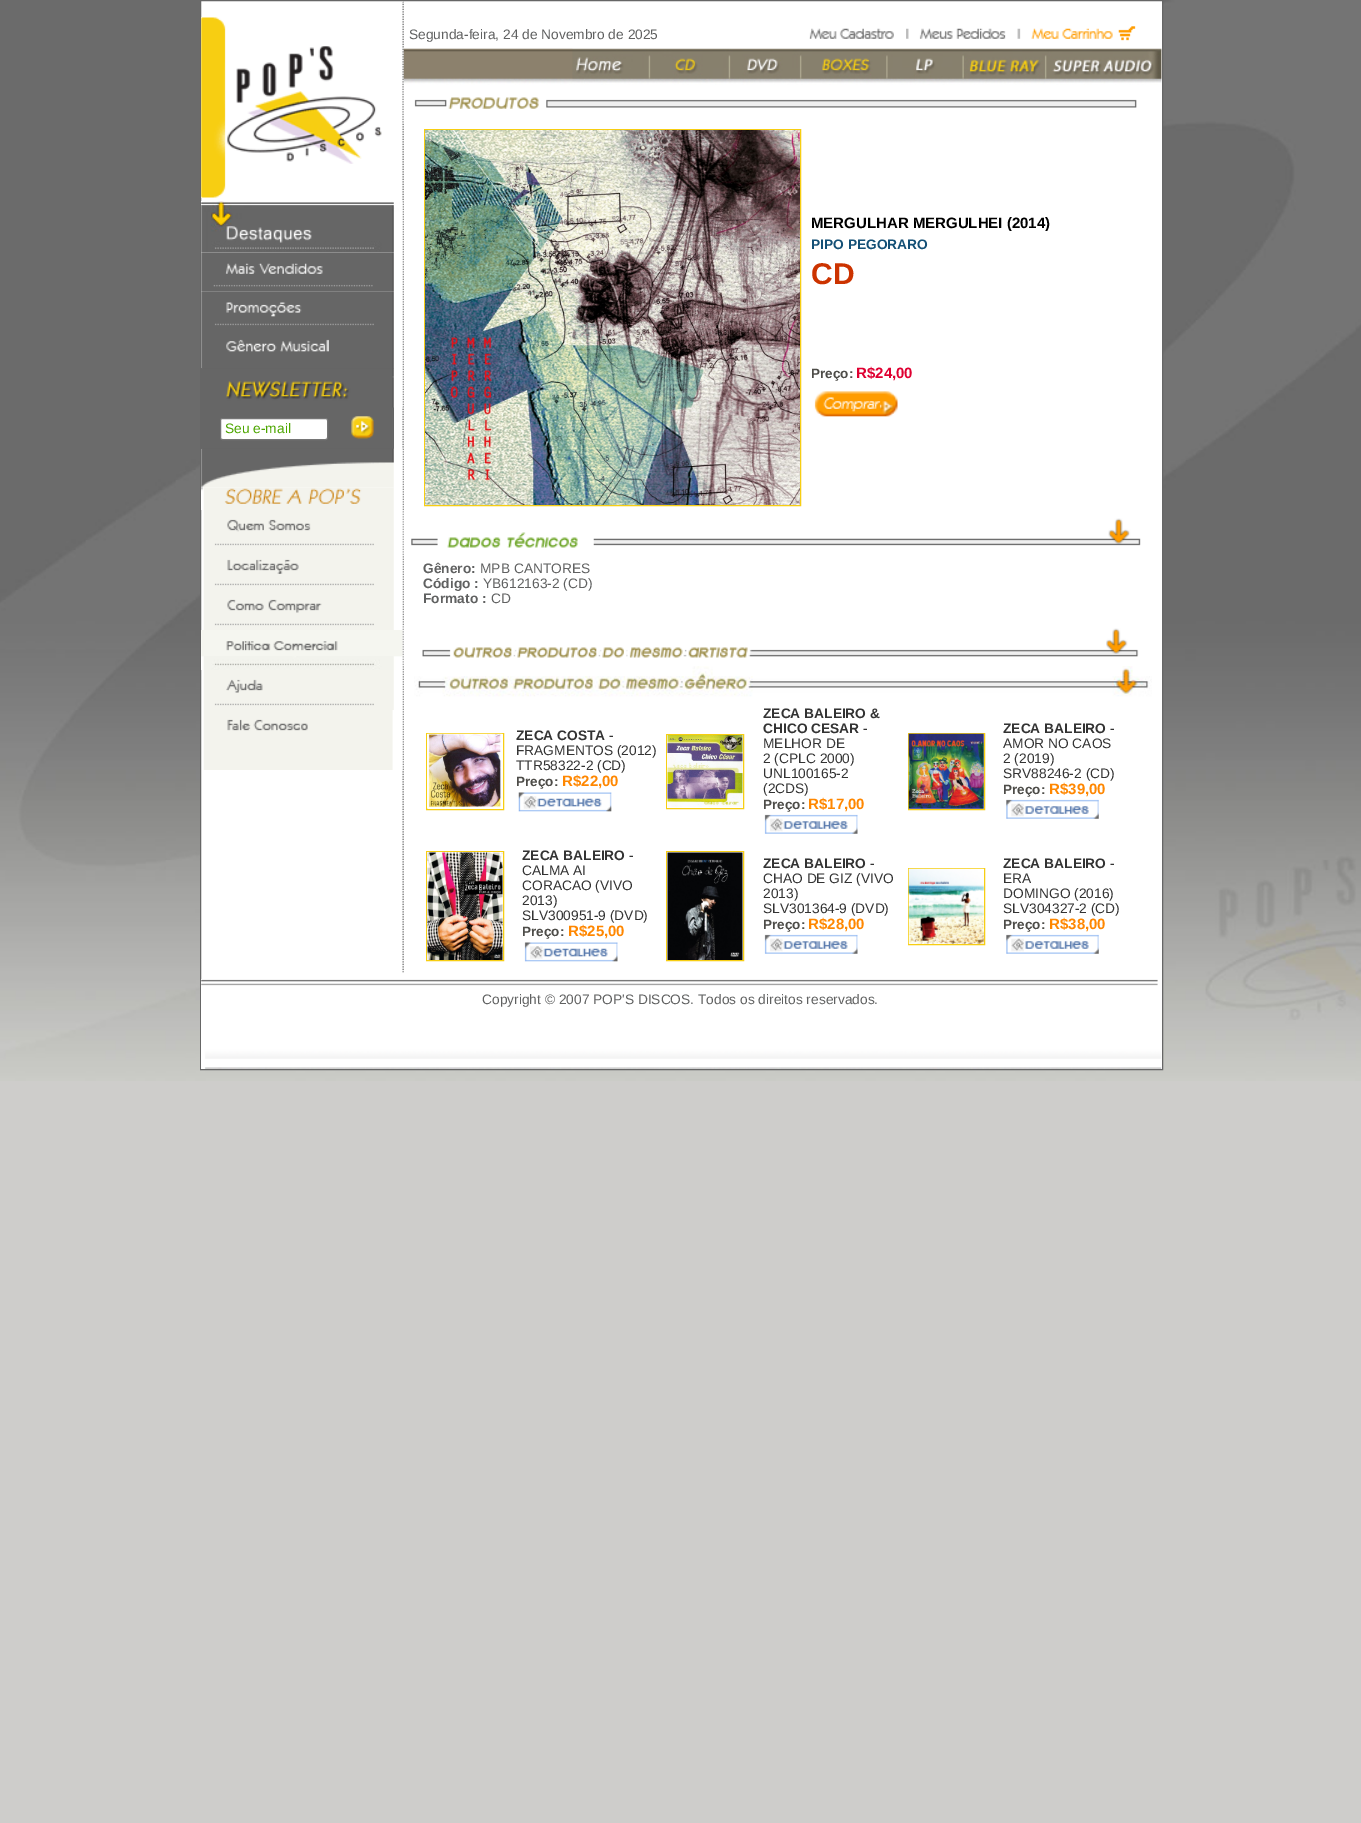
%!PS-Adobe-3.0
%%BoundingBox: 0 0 1361 1823
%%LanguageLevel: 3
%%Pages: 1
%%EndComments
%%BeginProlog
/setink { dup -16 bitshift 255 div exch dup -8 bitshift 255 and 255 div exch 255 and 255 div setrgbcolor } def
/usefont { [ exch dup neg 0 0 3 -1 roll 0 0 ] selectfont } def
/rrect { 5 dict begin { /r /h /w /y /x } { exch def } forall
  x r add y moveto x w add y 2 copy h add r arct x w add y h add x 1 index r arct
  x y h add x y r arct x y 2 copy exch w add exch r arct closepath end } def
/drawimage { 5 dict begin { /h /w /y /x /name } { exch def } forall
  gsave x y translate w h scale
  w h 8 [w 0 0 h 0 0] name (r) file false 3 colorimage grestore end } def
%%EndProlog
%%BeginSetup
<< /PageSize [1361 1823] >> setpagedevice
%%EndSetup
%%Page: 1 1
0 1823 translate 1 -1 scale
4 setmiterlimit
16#CECDCB setink
0 0 1361 1823 rectfill
(img1.raw) 0 0 1361 1081 drawimage
16#FFFFFF setink
200.5 0.5 moveto 1162.5 0.5 lineto 1162.5 1069.5 lineto 200.5 1069.5 lineto closepath gsave fill grestore
16#666666 setink
stroke
(img2.raw) 201 17 181 181 drawimage
(img18.raw) 402 1 2 972 drawimage
(img3.raw) 201 201 202 52 drawimage
(img4.raw) 201 252 202 40 drawimage
(img5.raw) 201 291 202 39 drawimage
201 368 193 81 rectfill
(img6.raw) 201 330 202 39 drawimage
(img7.raw) 226 369 177 39 drawimage
16#FFFFFF setink
220.5 418.5 107 21 2 rrect gsave fill grestore
16#767676 setink
stroke
/LiberationSans-Regular 13.75 usefont
16#4DA600 setink
225 433 moveto (Seu e-mail) show
(img8.raw) 351 416 23 23 drawimage
(img9.raw) 201 448 202 40 drawimage
(img10.raw) 201 487 202 23 drawimage
(img11.raw) 203 510 200 40 drawimage
(img12.raw) 203 550 200 40 drawimage
(img13.raw) 203 590 200 40 drawimage
(img14.raw) 201 630 202 40 drawimage
(img15.raw) 203 670 200 40 drawimage
(img16.raw) 203 710 200 40 drawimage
(img17.raw) 203 750 200 20 drawimage
16#606161 setink
409 39 moveto (Segunda-feira, 24 de Novembro de 2025) show
(img19.raw) 809 26 327 15 drawimage
(img20.raw) 403 47 759 38 drawimage
(img21.raw) 572 48 590 36 drawimage
(img22.raw) 403 86 734 38 drawimage
16#F7CE12 setink
424.5 129.5 376 376 rectstroke
(img23.raw) 425 130 375 375 drawimage
/LiberationSans-Bold 15 usefont
16#000000 setink
811 228 moveto (MERGULHAR MERGULHEI \(2014\)) show
/LiberationSans-Bold 13.75 usefont
16#145076 setink
811 249 moveto (PIPO PEGORARO) show
/LiberationSans-Bold 30 usefont
16#CC3300 setink
811 284 moveto (CD) show
/LiberationSans-Bold 13.5 usefont
16#4D4C48 setink
811 378 moveto (Preço:) show
/LiberationSans-Bold 15 usefont
16#DF0031 setink
856 378 moveto (R$24,00) show
(img24.raw) 814 391 84 26 drawimage
(img25.raw) 403 511 738 44 drawimage
/LiberationSans-Bold 13.75 usefont
16#606161 setink
423 573 moveto (Gênero:) show
/LiberationSans-Regular 13.75 usefont
480 573 moveto (MPB CANTORES) show
/LiberationSans-Bold 13.75 usefont
423 588 moveto (Código :) show
/LiberationSans-Regular 13.75 usefont
483 588 moveto (YB612163-2 \(CD\)) show
/LiberationSans-Bold 13.75 usefont
423 603 moveto (Formato :) show
/LiberationSans-Regular 13.75 usefont
491 603 moveto (CD) show
(img26.raw) 403 626 736 41 drawimage
(img27.raw) 414 666 738 31 drawimage
16#F7CE12 setink
426.5 733.5 77 76 rectstroke
(img28.raw) 427 733 76 75 drawimage
/LiberationSans-Bold 13.75 usefont
16#333333 setink
516 740 moveto (ZECA COSTA) show
/LiberationSans-Regular 13.75 usefont
[
    [(-) 609 740]
    [(FRAGMENTOS \(2012\)) 516 755]
    [(TTR58322-2 \(CD\)) 516 770]
] { aload pop moveto show } forall
/LiberationSans-Bold 13.5 usefont
16#4D4C48 setink
516 786 moveto (Preço:) show
/LiberationSans-Bold 15 usefont
16#FF8700 setink
562 786 moveto (R$22,00) show
(img29.raw) 518 792 94 20 drawimage
16#F7CE12 setink
666.5 734.5 77 74 rectstroke
(img30.raw) 667 735 76 73 drawimage
/LiberationSans-Bold 13.75 usefont
16#333333 setink
763 718 moveto (ZECA BALEIRO &) show
763 733 moveto (CHICO CESAR) show
/LiberationSans-Regular 13.75 usefont
[
    [(-) 863 733]
    [(MELHOR DE) 763 748]
    [(2 \(CPLC 2000\)) 763 763]
    [(UNL100165-2) 763 778]
    [(\(2CDS\)) 763 793]
] { aload pop moveto show } forall
/LiberationSans-Bold 13.5 usefont
16#4D4C48 setink
763 809 moveto (Preço:) show
/LiberationSans-Bold 15 usefont
16#FF8700 setink
808 809 moveto (R$17,00) show
(img31.raw) 764 814 94 20 drawimage
16#F7CE12 setink
908.5 733.5 76 76 rectstroke
(img32.raw) 908 733 76 76 drawimage
/LiberationSans-Bold 13.75 usefont
16#333333 setink
1003 733 moveto (ZECA BALEIRO) show
/LiberationSans-Regular 13.75 usefont
[
    [(-) 1110 733]
    [(AMOR NO CAOS) 1003 748]
    [(2 \(2019\)) 1003 763]
    [(SRV88246-2 \(CD\)) 1003 778]
] { aload pop moveto show } forall
/LiberationSans-Bold 13.5 usefont
16#4D4C48 setink
1003 794 moveto (Preço:) show
/LiberationSans-Bold 15 usefont
16#FF8700 setink
1049 794 moveto (R$39,00) show
(img33.raw) 1006 799 93 20 drawimage
16#F7CE12 setink
426.5 851.5 77 109 rectstroke
(img34.raw) 427 852 76 108 drawimage
/LiberationSans-Bold 13.75 usefont
16#333333 setink
522 860 moveto (ZECA BALEIRO) show
/LiberationSans-Regular 13.75 usefont
[
    [(-) 629 860]
    [(CALMA AI) 522 875]
    [(CORACAO \(VIVO) 522 890]
    [(2013\)) 522 905]
    [(SLV300951-9 \(DVD\)) 522 920]
] { aload pop moveto show } forall
/LiberationSans-Bold 13.5 usefont
16#4D4C48 setink
522 936 moveto (Preço:) show
/LiberationSans-Bold 15 usefont
16#FF8700 setink
568 936 moveto (R$25,00) show
(img35.raw) 524 942 94 20 drawimage
16#F7CE12 setink
666.5 851.5 77 109 rectstroke
(img36.raw) 667 852 76 108 drawimage
/LiberationSans-Bold 13.75 usefont
16#333333 setink
763 868 moveto (ZECA BALEIRO) show
/LiberationSans-Regular 13.75 usefont
[
    [(-) 870 868]
    [(CHAO DE GIZ \(VIVO) 763 883]
    [(2013\)) 763 898]
    [(SLV301364-9 \(DVD\)) 763 913]
] { aload pop moveto show } forall
/LiberationSans-Bold 13.5 usefont
16#4D4C48 setink
763 929 moveto (Preço:) show
/LiberationSans-Bold 15 usefont
16#FF8700 setink
808 929 moveto (R$28,00) show
(img31.raw) 764 934 94 20 drawimage
16#F7CE12 setink
908.5 868.5 76 76 rectstroke
(img37.raw) 908 868 76 76 drawimage
/LiberationSans-Bold 13.75 usefont
16#333333 setink
1003 868 moveto (ZECA BALEIRO) show
/LiberationSans-Regular 13.75 usefont
[
    [(-) 1110 868]
    [(ERA) 1003 883]
    [(DOMINGO \(2016\)) 1003 898]
    [(SLV304327-2 \(CD\)) 1003 913]
] { aload pop moveto show } forall
/LiberationSans-Bold 13.5 usefont
16#4D4C48 setink
1003 929 moveto (Preço:) show
/LiberationSans-Bold 15 usefont
16#FF8700 setink
1049 929 moveto (R$38,00) show
(img33.raw) 1006 934 93 20 drawimage
(img38.raw) 201 979 961 90 drawimage
/LiberationSans-Regular 13.75 usefont
16#606161 setink
482 1004 moveto (Copyright © 2007 POP'S DISCOS. Todos os direitos reservados.) show
showpage
%%EOF
